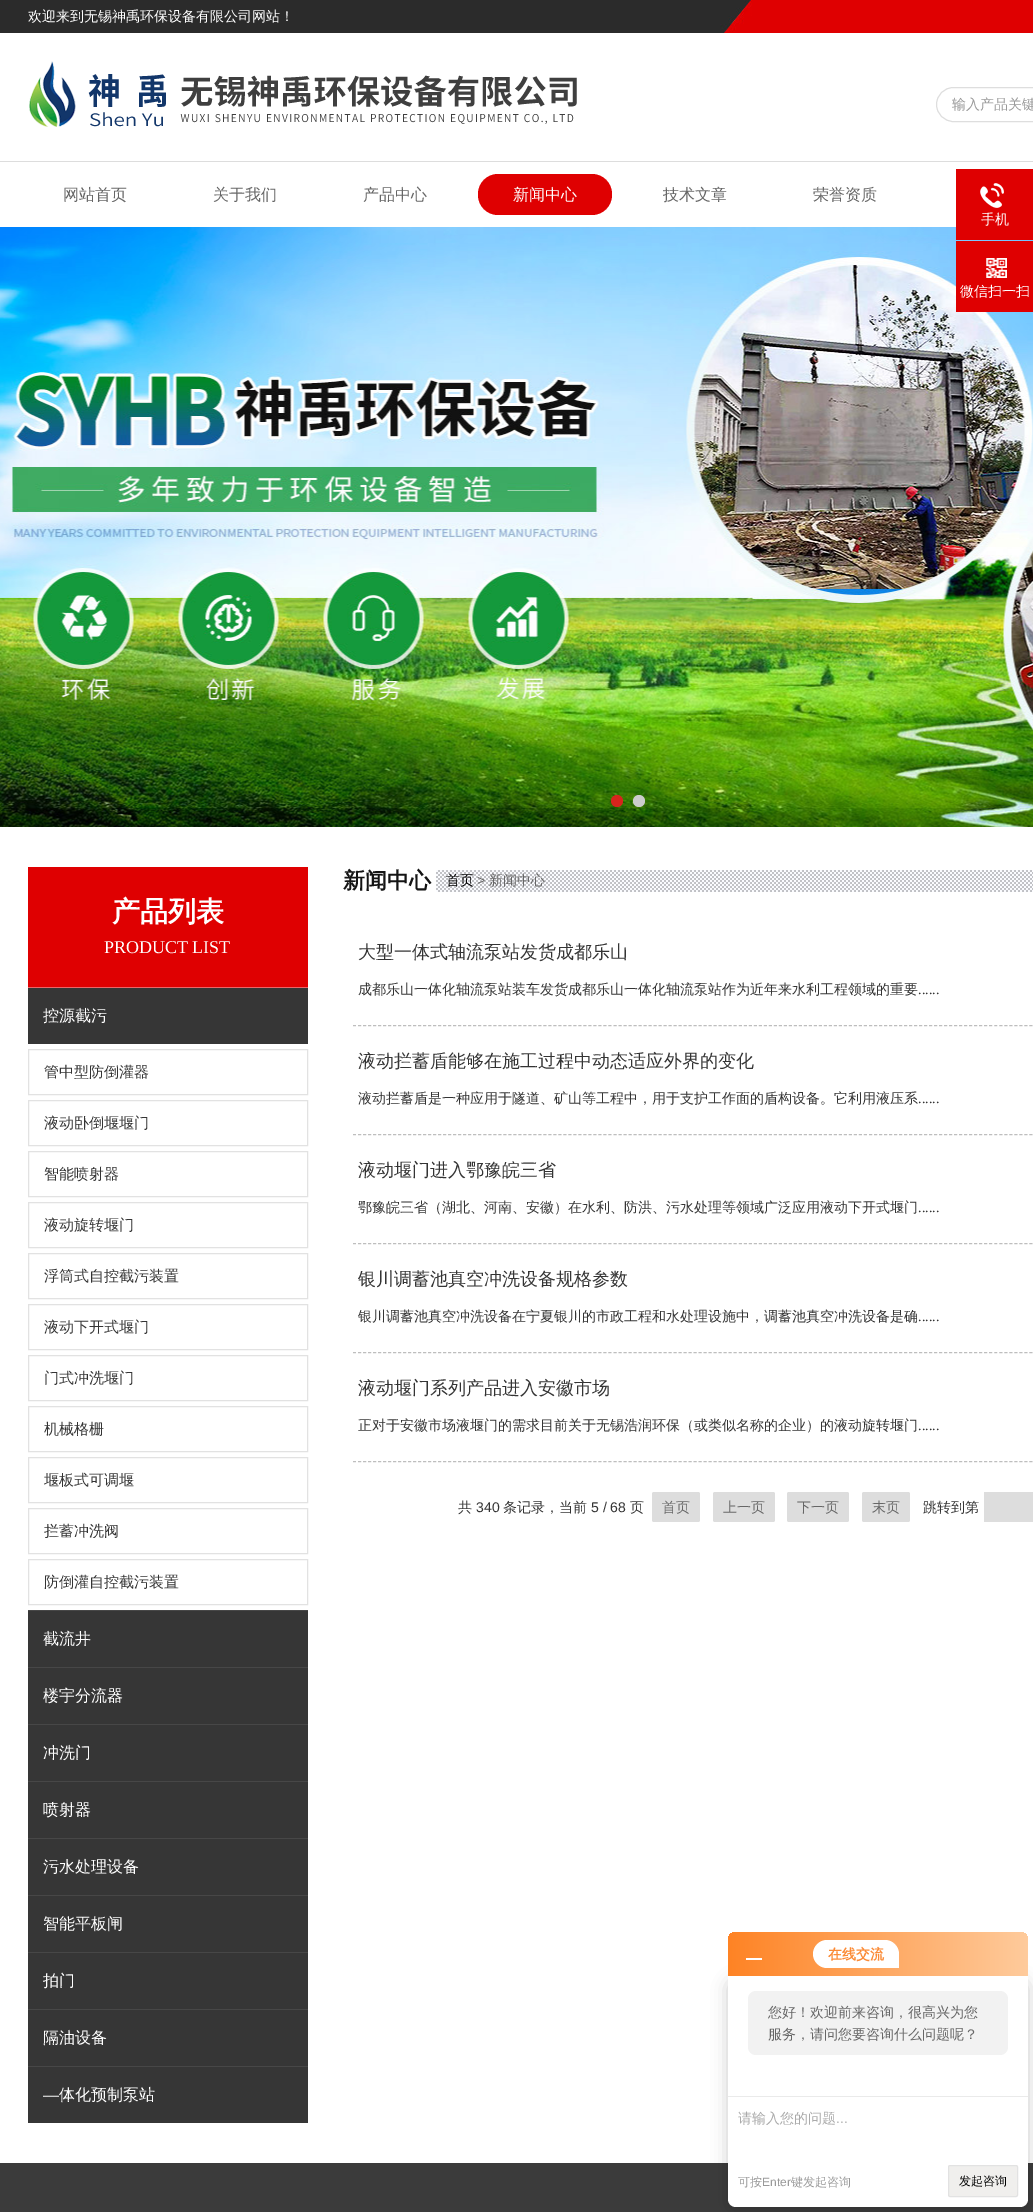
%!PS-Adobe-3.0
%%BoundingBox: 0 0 1033 2212
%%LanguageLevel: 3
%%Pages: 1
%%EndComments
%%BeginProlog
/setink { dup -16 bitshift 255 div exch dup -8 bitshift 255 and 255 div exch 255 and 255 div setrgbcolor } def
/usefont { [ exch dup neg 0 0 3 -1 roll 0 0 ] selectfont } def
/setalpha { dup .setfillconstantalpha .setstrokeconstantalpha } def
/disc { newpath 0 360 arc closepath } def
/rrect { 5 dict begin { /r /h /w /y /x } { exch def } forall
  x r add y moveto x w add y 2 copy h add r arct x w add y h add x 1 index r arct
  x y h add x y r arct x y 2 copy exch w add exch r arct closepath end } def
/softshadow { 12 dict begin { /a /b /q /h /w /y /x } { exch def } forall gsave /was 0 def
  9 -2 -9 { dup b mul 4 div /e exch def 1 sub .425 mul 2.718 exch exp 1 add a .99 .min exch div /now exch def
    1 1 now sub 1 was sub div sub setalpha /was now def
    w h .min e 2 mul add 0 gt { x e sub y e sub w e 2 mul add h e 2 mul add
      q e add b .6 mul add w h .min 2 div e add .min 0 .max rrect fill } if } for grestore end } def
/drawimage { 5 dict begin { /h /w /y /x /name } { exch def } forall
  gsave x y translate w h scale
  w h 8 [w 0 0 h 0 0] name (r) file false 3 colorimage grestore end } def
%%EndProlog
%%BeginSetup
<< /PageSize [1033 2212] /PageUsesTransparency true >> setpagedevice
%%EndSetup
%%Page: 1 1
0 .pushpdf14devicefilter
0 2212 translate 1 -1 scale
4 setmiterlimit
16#FFFFFF setink
0 0 1033 2212 rectfill
(img1.raw) 0 0 1033 33 drawimage
/WenQuanYiZenHei-Medium 14 usefont
28 21 moveto (欢迎来到无锡神禹环保设备有限公司网站！) show
(img2.raw) 29 61 548 66 drawimage
16#DEDEDE setink
936.5 87.5 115 34 17 rrect stroke
gsave
952 96 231 18 rectclip
16#999999 setink
952 109 moveto (输入产品关键) show
grestore
16#DDDDDD setink
0 161 1033 1 rectfill
/WenQuanYiZenHei-Medium 16 usefont
16#666666 setink
[
    [(网站首页) 63 200]
    [(关于我们) 213 200]
    [(产品中心) 363 200]
] { aload pop moveto show } forall
16#DF0001 setink
478 174 134 41 20 rrect fill
16#FFFFFF setink
513 200 moveto (新闻中心) show
16#666666 setink
663 200 moveto (技术文章) show
813 200 moveto (荣誉资质) show
(img5.raw) 0 227 1033 600 drawimage
16#DF0001 setink
956 169 77 71 rectfill
(img3.raw) 980 183 24 25 drawimage
/WenQuanYiZenHei-Medium 14 usefont
16#FFFFFF setink
981 224 moveto (手机) show
16#DF0001 setink
956 241 77 71 rectfill
(img4.raw) 986 258 21 20 drawimage
16#FFFFFF setink
960 296 moveto (微信扫一扫) show
16#D7241D setink
617 801 6 disc fill
16#CCCCCC setink
639 801 6 disc fill
16#DF0001 setink
28 867 280 120 rectfill
16#EC6667 setink
28 987 280 1 rectfill
/WenQuanYiZenHei-Bold 28 usefont
16#FFFFFF setink
112 921 moveto (产品列表) show
/LiberationSerif-Regular 18 usefont
104 953 moveto (PRODUCT LIST) show
16#363636 setink
28 988 280 56 rectfill
/WenQuanYiZenHei-Medium 16 usefont
16#FFFFFF setink
43 1021 moveto (控源截污) show
16#E2E2E2 setink
28.5 1049.5 279 45 rectstroke
/WenQuanYiZenHei-Medium 15 usefont
16#343434 setink
44 1077 moveto (管中型防倒灌器) show
16#E2E2E2 setink
28.5 1100.5 279 45 rectstroke
16#343434 setink
44 1128 moveto (液动卧倒堰堰门) show
16#E2E2E2 setink
28.5 1151.5 279 45 rectstroke
16#343434 setink
44 1179 moveto (智能喷射器) show
16#E2E2E2 setink
28.5 1202.5 279 45 rectstroke
16#343434 setink
44 1230 moveto (液动旋转堰门) show
16#E2E2E2 setink
28.5 1253.5 279 45 rectstroke
16#343434 setink
44 1281 moveto (浮筒式自控截污装置) show
16#E2E2E2 setink
28.5 1304.5 279 45 rectstroke
16#343434 setink
44 1332 moveto (液动下开式堰门) show
16#E2E2E2 setink
28.5 1355.5 279 45 rectstroke
16#343434 setink
44 1383 moveto (门式冲洗堰门) show
16#E2E2E2 setink
28.5 1406.5 279 45 rectstroke
16#343434 setink
44 1434 moveto (机械格栅) show
16#E2E2E2 setink
28.5 1457.5 279 45 rectstroke
16#343434 setink
44 1485 moveto (堰板式可调堰) show
16#E2E2E2 setink
28.5 1508.5 279 45 rectstroke
16#343434 setink
44 1536 moveto (拦蓄冲洗阀) show
16#E2E2E2 setink
28.5 1559.5 279 45 rectstroke
16#343434 setink
44 1587 moveto (防倒灌自控截污装置) show
16#363636 setink
28 1611 280 56 rectfill
16#474747 setink
28 1610 280 1 rectfill
/WenQuanYiZenHei-Medium 16 usefont
16#FFFFFF setink
43 1644 moveto (截流井) show
16#363636 setink
28 1668 280 56 rectfill
16#474747 setink
28 1667 280 1 rectfill
16#FFFFFF setink
43 1701 moveto (楼宇分流器) show
16#363636 setink
28 1725 280 56 rectfill
16#474747 setink
28 1724 280 1 rectfill
16#FFFFFF setink
43 1758 moveto (冲洗门) show
16#363636 setink
28 1782 280 56 rectfill
16#474747 setink
28 1781 280 1 rectfill
16#FFFFFF setink
43 1815 moveto (喷射器) show
16#363636 setink
28 1839 280 56 rectfill
16#474747 setink
28 1838 280 1 rectfill
16#FFFFFF setink
43 1872 moveto (污水处理设备) show
16#363636 setink
28 1896 280 56 rectfill
16#474747 setink
28 1895 280 1 rectfill
16#FFFFFF setink
43 1929 moveto (智能平板闸) show
16#363636 setink
28 1953 280 56 rectfill
16#474747 setink
28 1952 280 1 rectfill
gsave
43 1953 250 56 rectclip
16#FFFFFF setink
43 1986 moveto (拍门) show
grestore
16#363636 setink
28 2010 280 56 rectfill
16#474747 setink
28 2009 280 1 rectfill
16#FFFFFF setink
43 2043 moveto (隔油设备) show
16#363636 setink
28 2067 280 56 rectfill
16#474747 setink
28 2066 280 1 rectfill
/LiberationSerif-Regular 16 usefont
16#FFFFFF setink
43 2100 moveto (—) show
/WenQuanYiZenHei-Medium 16 usefont
59 2100 moveto (体化预制泵站) show
(img6.raw) 436 870 597 22 drawimage
/WenQuanYiZenHei-Bold 22 usefont
16#141414 setink
343 888 moveto (新闻中心) show
/WenQuanYiZenHei-Medium 14 usefont
16#000000 setink
446 885 moveto (首页) show
/LiberationSans-Regular 14 usefont
16#666666 setink
477 885 moveto (>) show
/WenQuanYiZenHei-Medium 14 usefont
489 885 moveto (新闻中心) show
16#BEBEBE setink
[3 2.01] 0 setdash
353 1025.5 moveto 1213 1025.5 lineto stroke
/WenQuanYiZenHei-Medium 18 usefont
16#343434 setink
358 958 moveto (大型一体式轴流泵站发货成都乐山) show
/WenQuanYiZenHei-Medium 14 usefont
358 994 moveto (成都乐山一体化轴流泵站装车发货成都乐山一体化轴流泵站作为近年来水利工程领域的重要) show
/LiberationSerif-Regular 14 usefont
918 994 moveto (......) show
16#BEBEBE setink
353 1134.5 moveto 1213 1134.5 lineto stroke
/WenQuanYiZenHei-Medium 18 usefont
16#343434 setink
358 1067 moveto (液动拦蓄盾能够在施工过程中动态适应外界的变化) show
/WenQuanYiZenHei-Medium 14 usefont
358 1103 moveto (液动拦蓄盾是一种应用于隧道、矿山等工程中，用于支护工作面的盾构设备。它利用液压系) show
/LiberationSerif-Regular 14 usefont
918 1103 moveto (......) show
16#BEBEBE setink
353 1243.5 moveto 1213 1243.5 lineto stroke
/WenQuanYiZenHei-Medium 18 usefont
16#343434 setink
358 1176 moveto (液动堰门进入鄂豫皖三省) show
/WenQuanYiZenHei-Medium 14 usefont
358 1212 moveto (鄂豫皖三省（湖北、河南、安徽）在水利、防洪、污水处理等领域广泛应用液动下开式堰门) show
/LiberationSerif-Regular 14 usefont
918 1212 moveto (......) show
16#BEBEBE setink
353 1352.5 moveto 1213 1352.5 lineto stroke
/WenQuanYiZenHei-Medium 18 usefont
16#343434 setink
358 1285 moveto (银川调蓄池真空冲洗设备规格参数) show
/WenQuanYiZenHei-Medium 14 usefont
358 1321 moveto (银川调蓄池真空冲洗设备在宁夏银川的市政工程和水处理设施中，调蓄池真空冲洗设备是确) show
/LiberationSerif-Regular 14 usefont
918 1321 moveto (......) show
16#BEBEBE setink
353 1461.5 moveto 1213 1461.5 lineto stroke
/WenQuanYiZenHei-Medium 18 usefont
16#343434 setink
358 1394 moveto (液动堰门系列产品进入安徽市场) show
/WenQuanYiZenHei-Medium 14 usefont
358 1430 moveto (正对于安徽市场液堰门的需求目前关于无锡浩润环保（或类似名称的企业）的液动旋转堰门) show
/LiberationSerif-Regular 14 usefont
918 1430 moveto (......) show
/WenQuanYiZenHei-Medium 14 usefont
458 1512 moveto (共) show
/LiberationSans-Regular 14 usefont
476 1512 moveto (340) show
/WenQuanYiZenHei-Medium 14 usefont
503 1512 moveto (条记录，当前) show
/LiberationSans-Regular 14 usefont
591 1512 moveto (5 / 68) show
/WenQuanYiZenHei-Medium 14 usefont
630 1512 moveto (页) show
16#DDDDDD setink
652 1492 48 30 2 rrect fill
16#666666 setink
662 1512 moveto (首页) show
16#DDDDDD setink
713 1492 62 30 2 rrect fill
16#666666 setink
723 1512 moveto (上一页) show
16#DDDDDD setink
787 1492 62 30 2 rrect fill
16#666666 setink
797 1512 moveto (下一页) show
16#DDDDDD setink
862 1492 48 30 2 rrect fill
16#666666 setink
872 1512 moveto (末页) show
16#343434 setink
923 1512 moveto (跳转到第) show
16#DDDDDD setink
984 1492 49 30 rectfill
16#3B3B3B setink
0 2163 1033 49 rectfill
16#000000 setink
728 1980 300 231 8 8 0.2 softshadow
gsave 736 1932 moveto 1020 1932 lineto 1024.5 1932 1028 1935.5 1028 1940 curveto 1028 1976 lineto 728 1976 lineto 728 1940 lineto 728 1935.5 731.5 1932 736 1932 curveto closepath clip newpath
<< /ShadingType 2 /ColorSpace /DeviceRGB /Coords [728 1954 1028 1954] /Extend [true true] /Function << /FunctionType 2 /Domain [0 1] /C0 [1 0.514 0.141] /C1 [0.996 0.796 0.612] /N 1 >> >> shfill grestore
16#FFFFFF setink
746 1958 16 2 rectfill
827 1940 moveto 885 1940 lineto 892.5 1940 899 1946.5 899 1954 curveto 899 1968 lineto 827 1968 lineto 819.5 1968 813 1961.5 813 1954 curveto 813 1946.5 819.5 1940 827 1940 curveto closepath fill
/WenQuanYiZenHei-Bold 14 usefont
16#FB8B36 setink
828 1959 moveto (在线交流) show
16#FFFFFF setink
728 1976 moveto 1028 1976 lineto 1028 2199 lineto 1028 2203.5 1024.5 2207 1020 2207 curveto 736 2207 lineto 731.5 2207 728 2203.5 728 2199 curveto closepath fill
16#F2F2F2 setink
748 1991 260 64 8 rrect fill
/WenQuanYiZenHei-Medium 14 usefont
16#666666 setink
768 2017 moveto (您好！欢迎前来咨询，很高兴为您) show
768 2039 moveto (服务，请问您要咨询什么问题呢？) show
16#EAEAEA setink
728 2096 300 1 rectfill
16#AAAAAA setink
738 2123 moveto (请输入您的问题) show
/LiberationSans-Regular 14 usefont
836 2123 moveto (...) show
/WenQuanYiZenHei-Medium 12 usefont
16#999999 setink
738 2186 moveto (可按) show
/LiberationSans-Regular 12 usefont
762 2186 moveto (Enter) show
/WenQuanYiZenHei-Medium 12 usefont
791 2186 moveto (键发起咨询) show
16#F0EFED setink
948.5 2165.5 69 31 1.5 rrect gsave fill grestore
16#E2E2E2 setink
[] 0 setdash
stroke
16#000000 setink
959 2185 moveto (发起咨询) show
.poppdf14devicefilter showpage
%%EOF
